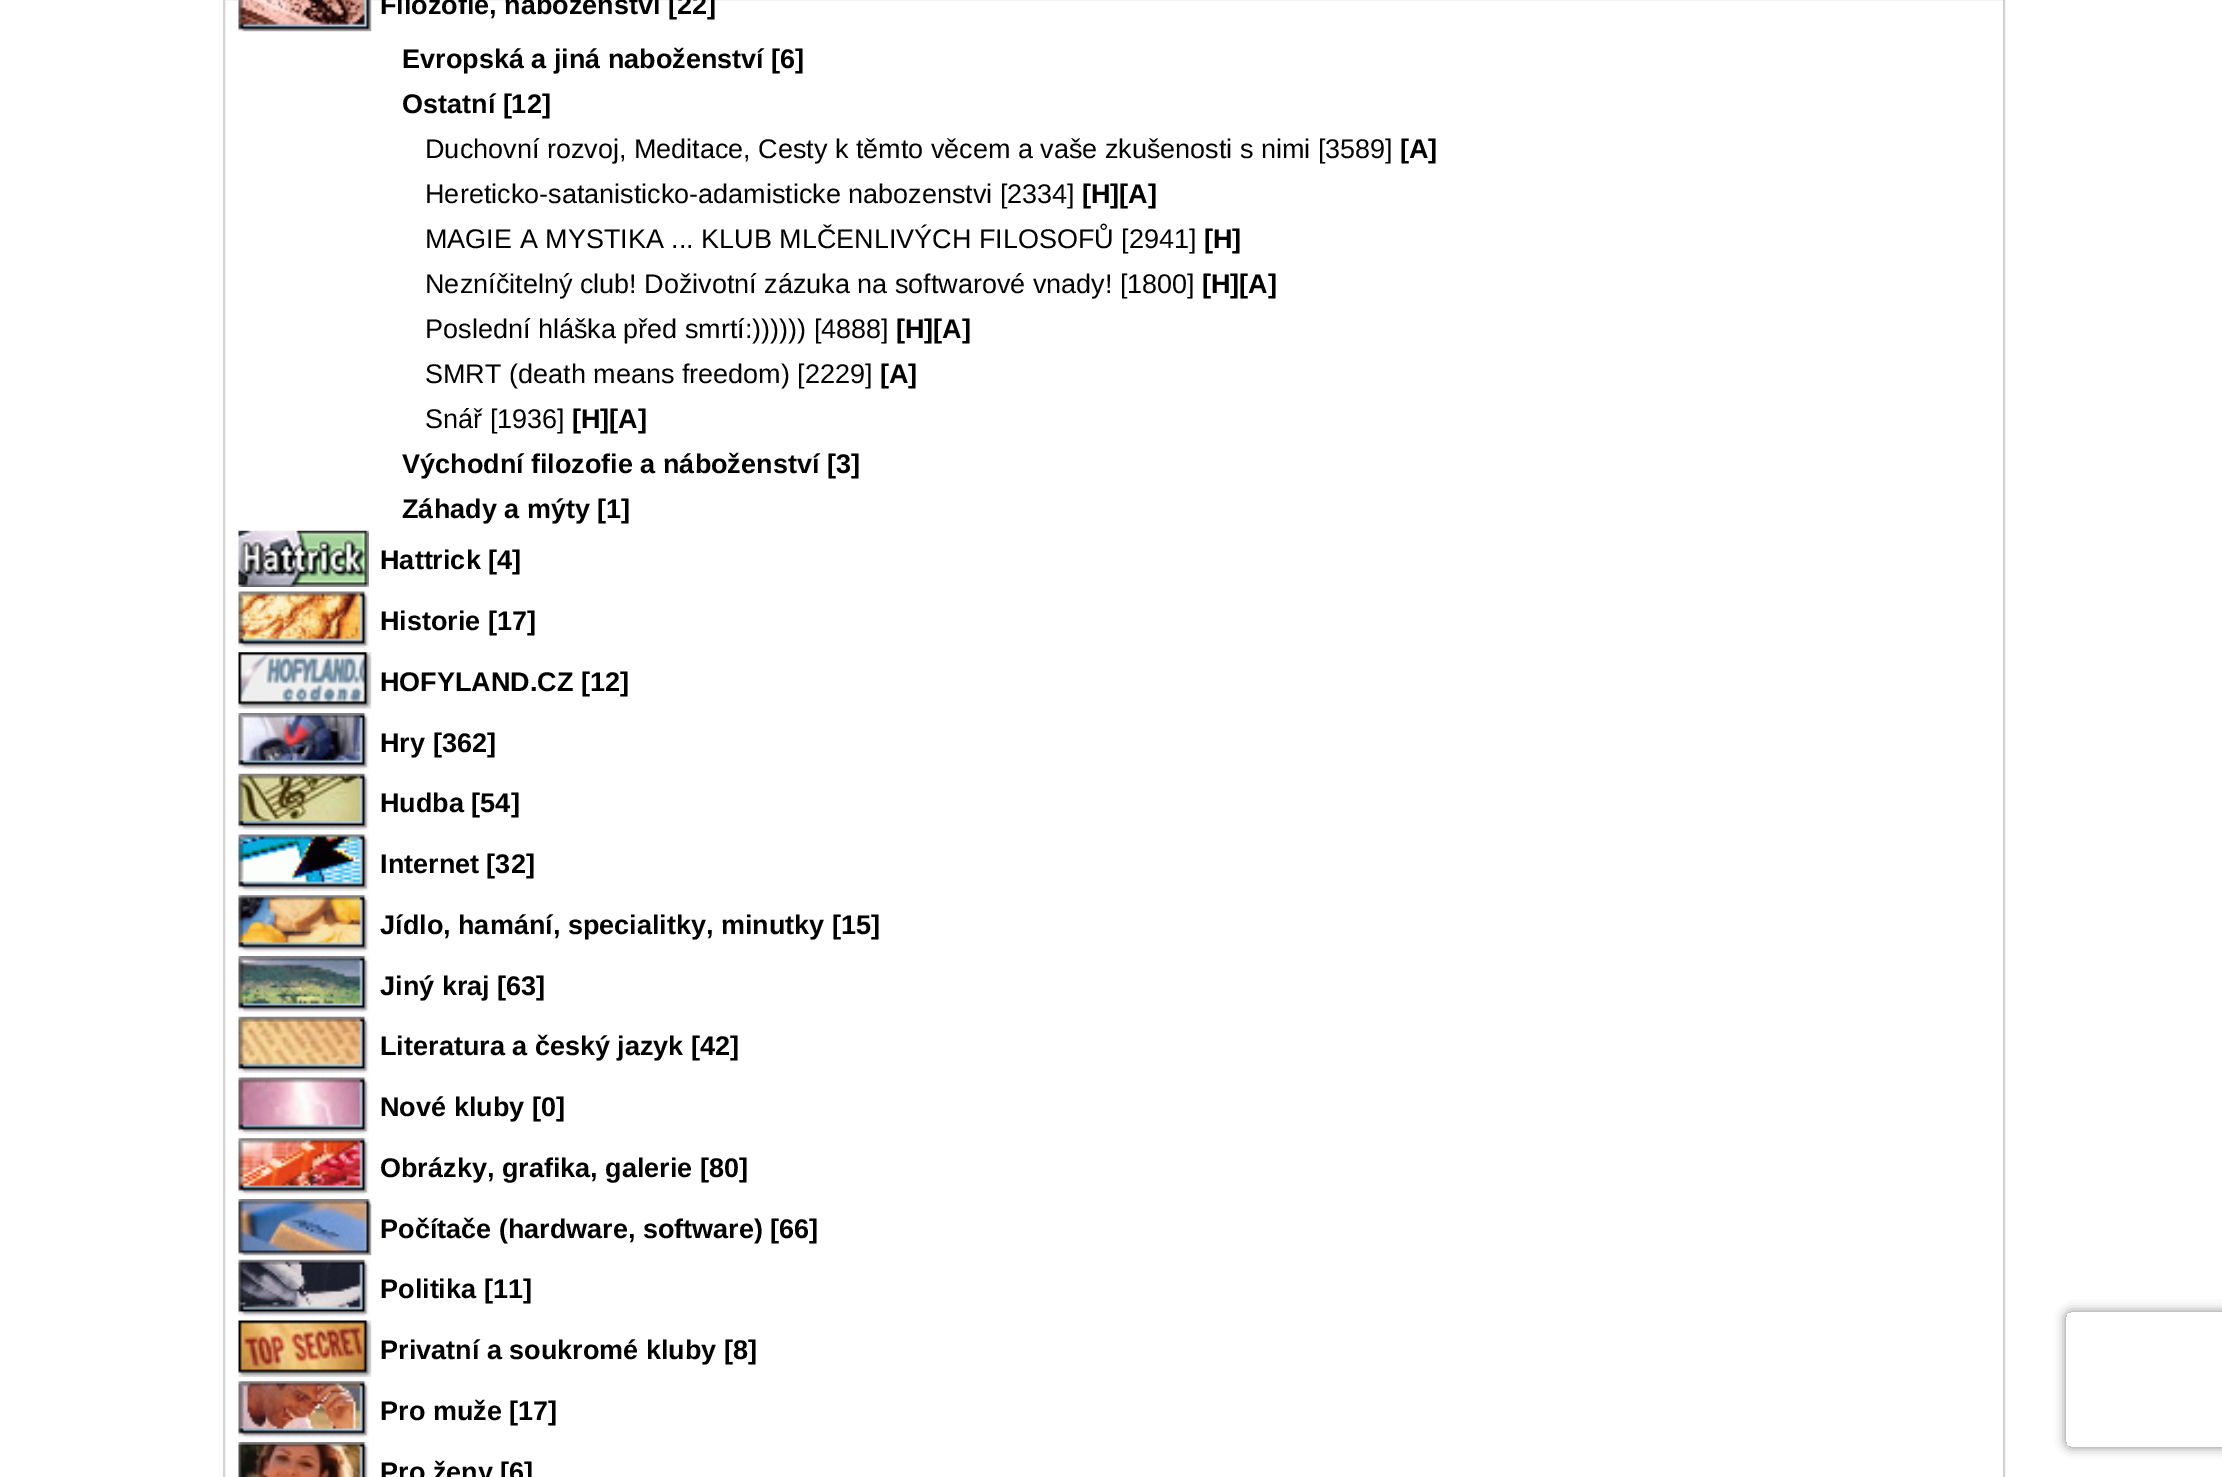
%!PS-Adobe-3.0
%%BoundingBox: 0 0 2222 1477
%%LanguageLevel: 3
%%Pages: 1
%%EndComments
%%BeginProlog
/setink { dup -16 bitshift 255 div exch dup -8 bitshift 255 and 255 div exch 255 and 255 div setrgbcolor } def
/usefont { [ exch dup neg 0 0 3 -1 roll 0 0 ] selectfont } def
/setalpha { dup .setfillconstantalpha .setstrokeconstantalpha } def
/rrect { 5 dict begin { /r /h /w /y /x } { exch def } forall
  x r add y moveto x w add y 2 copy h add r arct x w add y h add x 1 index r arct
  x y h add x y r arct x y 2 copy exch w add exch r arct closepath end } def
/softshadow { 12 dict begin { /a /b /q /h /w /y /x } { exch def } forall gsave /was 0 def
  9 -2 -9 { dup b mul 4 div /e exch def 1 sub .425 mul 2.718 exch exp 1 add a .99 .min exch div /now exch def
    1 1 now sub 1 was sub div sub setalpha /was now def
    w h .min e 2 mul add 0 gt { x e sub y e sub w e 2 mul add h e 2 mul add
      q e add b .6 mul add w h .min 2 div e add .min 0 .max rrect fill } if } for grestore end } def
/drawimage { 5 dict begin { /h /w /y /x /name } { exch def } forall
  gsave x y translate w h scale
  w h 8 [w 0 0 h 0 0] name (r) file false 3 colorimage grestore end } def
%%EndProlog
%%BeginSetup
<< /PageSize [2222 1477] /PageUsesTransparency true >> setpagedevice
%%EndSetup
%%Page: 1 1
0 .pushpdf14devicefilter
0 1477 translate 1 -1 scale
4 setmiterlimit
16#FFFFFF setink
0 0 2222 1477 rectfill
16#D2D2D2 setink
2 setlinewidth
224 -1 1780 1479 rectstroke
(img1.raw) 238 0 134 32 drawimage
/LiberationSans-Bold 27 usefont
16#000000 setink
[
    [(Filozofie, náboženství [22]) 380 14]
    [(Evropská a jiná naboženství [6]) 402 68]
    [(Ostatní [12]) 402 113]
] { aload pop moveto show } forall
/LiberationSans-Regular 27 usefont
425 158 moveto (Duchovní rozvoj, Meditace, Cesty k těmto věcem a vaše zkušenosti s nimi [3589]) show
/LiberationSans-Bold 27 usefont
1400 158 moveto ([A]) show
/LiberationSans-Regular 27 usefont
425 203 moveto (Hereticko-satanisticko-adamisticke nabozenstvi [2334]) show
/LiberationSans-Bold 27 usefont
1082 203 moveto ([H][A]) show
/LiberationSans-Regular 27 usefont
425 248 moveto (MAGIE A MYSTIKA ... KLUB MLČENLIVÝCH FILOSOFŮ [2941]) show
/LiberationSans-Bold 27 usefont
1204 248 moveto ([H]) show
/LiberationSans-Regular 27 usefont
425 293 moveto (Nezníčitelný club! Doživotní zázuka na softwarové vnady! [1800]) show
/LiberationSans-Bold 27 usefont
1202 293 moveto ([H][A]) show
/LiberationSans-Regular 27 usefont
425 338 moveto (Poslední hláška před smrtí:\)\)\)\)\)\) [4888]) show
/LiberationSans-Bold 27 usefont
896 338 moveto ([H][A]) show
/LiberationSans-Regular 27 usefont
425 383 moveto (SMRT \(death means freedom\) [2229]) show
/LiberationSans-Bold 27 usefont
880 383 moveto ([A]) show
/LiberationSans-Regular 27 usefont
425 428 moveto (Snář [1936]) show
/LiberationSans-Bold 27 usefont
[
    [([H][A]) 572 428]
    [(Východní filozofie a náboženství [3]) 402 473]
    [(Záhady a mýty [1]) 402 518]
] { aload pop moveto show } forall
(img2.raw) 238 530 131 57 drawimage
380 569 moveto (Hattrick [4]) show
(img3.raw) 238 591 131 57 drawimage
380 630 moveto (Historie [17]) show
(img4.raw) 238 652 134 57 drawimage
380 691 moveto (HOFYLAND.CZ [12]) show
(img5.raw) 238 713 131 57 drawimage
380 752 moveto (Hry [362]) show
(img6.raw) 238 773 131 57 drawimage
380 812 moveto (Hudba [54]) show
(img7.raw) 238 834 131 57 drawimage
380 873 moveto (Internet [32]) show
(img8.raw) 238 895 131 57 drawimage
380 934 moveto (Jídlo, hamání, specialitky, minutky [15]) show
(img9.raw) 238 956 131 57 drawimage
380 995 moveto (Jiný kraj [63]) show
(img10.raw) 238 1016 131 57 drawimage
380 1055 moveto (Literatura a český jazyk [42]) show
(img11.raw) 238 1077 131 57 drawimage
380 1116 moveto (Nové kluby [0]) show
(img12.raw) 238 1138 131 57 drawimage
380 1177 moveto (Obrázky, grafika, galerie [80]) show
(img13.raw) 238 1199 134 57 drawimage
380 1238 moveto (Počítače \(hardware, software\) [66]) show
(img14.raw) 238 1259 131 57 drawimage
380 1298 moveto (Politika [11]) show
(img15.raw) 238 1320 134 57 drawimage
380 1359 moveto (Privatní a soukromé kluby [8]) show
(img16.raw) 238 1381 131 57 drawimage
380 1420 moveto (Pro muže [17]) show
(img17.raw) 238 1442 131 35 drawimage
380 1481 moveto (Pro ženy [6]) show
gsave
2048 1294 moveto 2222 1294 lineto 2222 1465 lineto 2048 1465 lineto closepath 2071 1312 moveto 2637 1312 lineto 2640 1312 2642 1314 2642 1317 curveto 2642 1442 lineto 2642 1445 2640 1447 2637 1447 curveto 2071 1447 lineto 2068 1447 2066 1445 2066 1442 curveto 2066 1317 lineto 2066 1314 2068 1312 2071 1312 curveto closepath eoclip newpath
16#808080 setink
2066 1312 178 135 5 5.5 1 softshadow
grestore
.poppdf14devicefilter showpage
%%EOF
